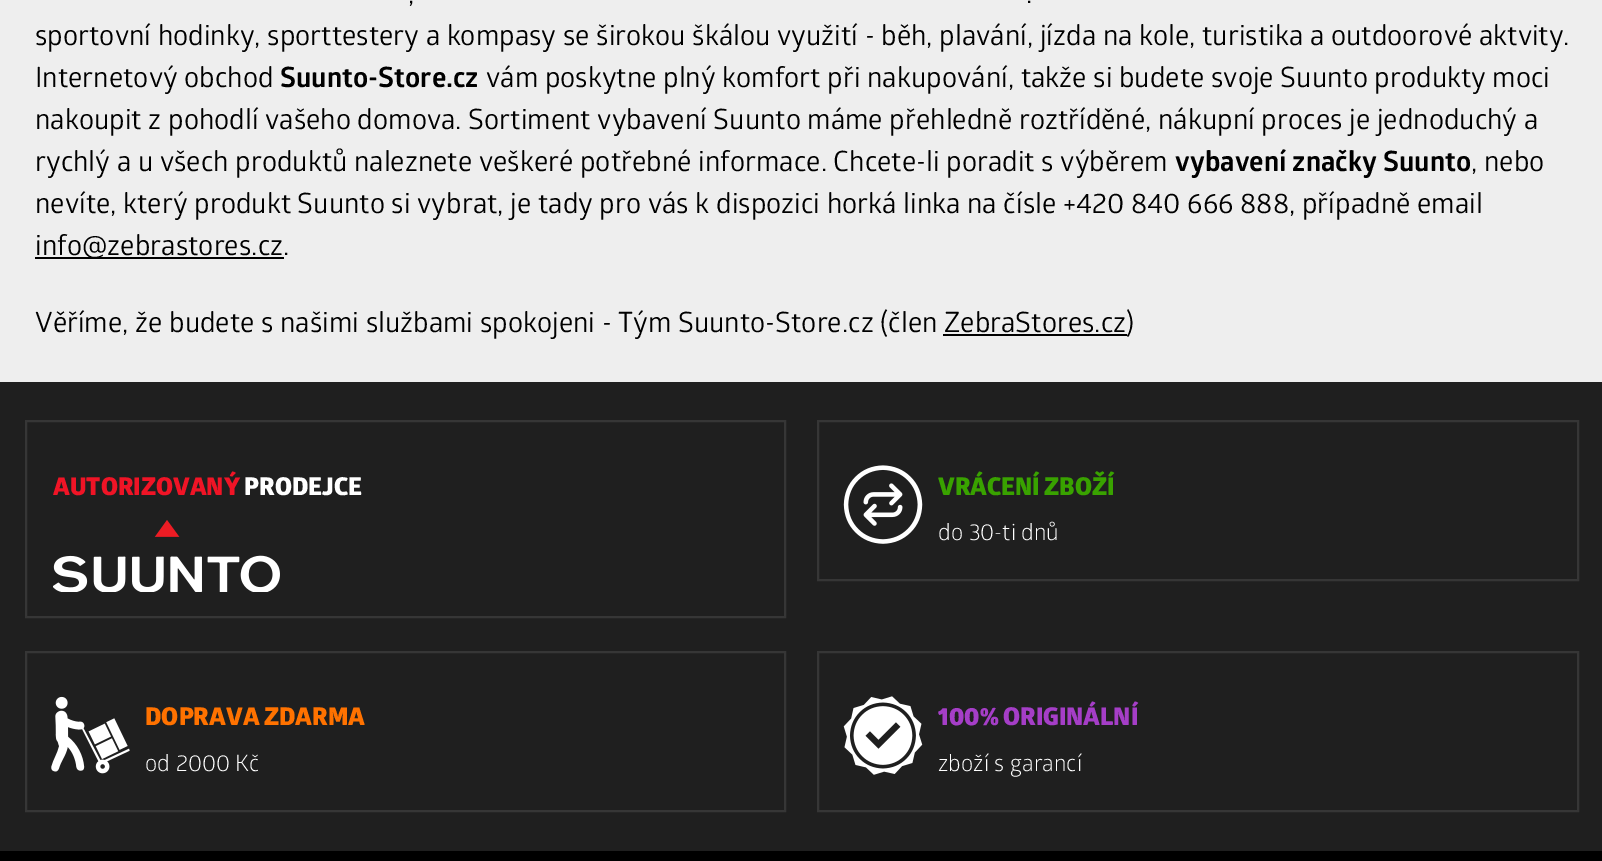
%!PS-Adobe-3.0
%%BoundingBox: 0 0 1602 861
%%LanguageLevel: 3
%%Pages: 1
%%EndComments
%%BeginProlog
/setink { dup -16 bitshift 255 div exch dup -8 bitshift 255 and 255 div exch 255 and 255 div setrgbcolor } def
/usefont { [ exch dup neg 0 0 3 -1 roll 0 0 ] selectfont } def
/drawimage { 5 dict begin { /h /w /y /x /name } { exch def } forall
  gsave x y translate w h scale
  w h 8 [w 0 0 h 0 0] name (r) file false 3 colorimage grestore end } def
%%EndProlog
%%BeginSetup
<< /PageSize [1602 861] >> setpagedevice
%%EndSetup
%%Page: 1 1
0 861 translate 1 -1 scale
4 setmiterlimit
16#000000 setink
0 0 1602 861 rectfill
16#EEEEEE setink
0 0 1602 382 rectfill
/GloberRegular-Regular 28 usefont
16#000000 setink
[
    [(,) 408 3]
    [(.) 1026 3]
    [(sportovní hodinky, sporttestery a kompasy se širokou škálou využití - běh, plavání, jízda na kole, turistika a outdoorové aktvity.) 35 45]
    [(Internetový obchod) 35 87]
] { aload pop moveto show } forall
/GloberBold-Regular 28 usefont
280 87 moveto (Suunto-Store.cz) show
/GloberRegular-Regular 28 usefont
[
    [(vám poskytne plný komfort při nakupování, takže si budete svoje Suunto produkty moci) 486 87]
    [(nakoupit z pohodlí vašeho domova. Sortiment vybavení Suunto máme přehledně roztříděné, nákupní proces je jednoduchý a) 35 129]
    [(rychlý a u všech produktů naleznete veškeré potřebné informace. Chcete-li poradit s výběrem) 35 171]
] { aload pop moveto show } forall
/GloberBold-Regular 28 usefont
1175 171 moveto (vybavení značky Suunto) show
/GloberRegular-Regular 28 usefont
1471 171 moveto (, nebo) show
35 213 moveto (nevíte, který produkt Suunto si vybrat, je tady pro vás k dispozici horká linka na čísle +420 840 666 888, případně email) show
35 257 249 2 rectfill
35 255 moveto (info@zebrastores.cz.) show
35 332 moveto (Věříme, že budete s našimi službami spokojeni - Tým Suunto-Store.cz \(člen ZebraStores.cz\)) show
943 334 184 2 rectfill
16#1F1F1F setink
0 382 1602 469 rectfill
16#363636 setink
2 setlinewidth
26 421 759 196 rectstroke
/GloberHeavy-Regular 24.5 usefont
16#F01426 setink
53 495 moveto (AUTORIZOVANÝ) show
16#FFFFFF setink
244 495 moveto (PRODEJCE) show
(img1.raw) 53 520 227 72 drawimage
16#363636 setink
818 421 760 159 rectstroke
(img2.raw) 843 465 80 79 drawimage
16#39A200 setink
938 495 moveto (VRÁCENÍ ZBOŽÍ) show
/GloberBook-Regular 22.75 usefont
16#FFFFFF setink
938 540 moveto (do 30-ti dnů) show
16#363636 setink
26 652 759 159 rectstroke
(img3.raw) 51 696 79 78 drawimage
/GloberHeavy-Regular 24.5 usefont
16#FF7200 setink
145 725 moveto (DOPRAVA ZDARMA) show
/GloberBook-Regular 22.75 usefont
16#FFFFFF setink
145 771 moveto (od 2000 Kč) show
16#363636 setink
818 652 760 159 rectstroke
(img4.raw) 843 696 80 79 drawimage
/GloberHeavy-Regular 24.5 usefont
16#A53EC7 setink
938 725 moveto (100% ORIGINÁLNÍ) show
/GloberBook-Regular 22.75 usefont
16#FFFFFF setink
938 771 moveto (zboží s garancí) show
showpage
%%EOF
